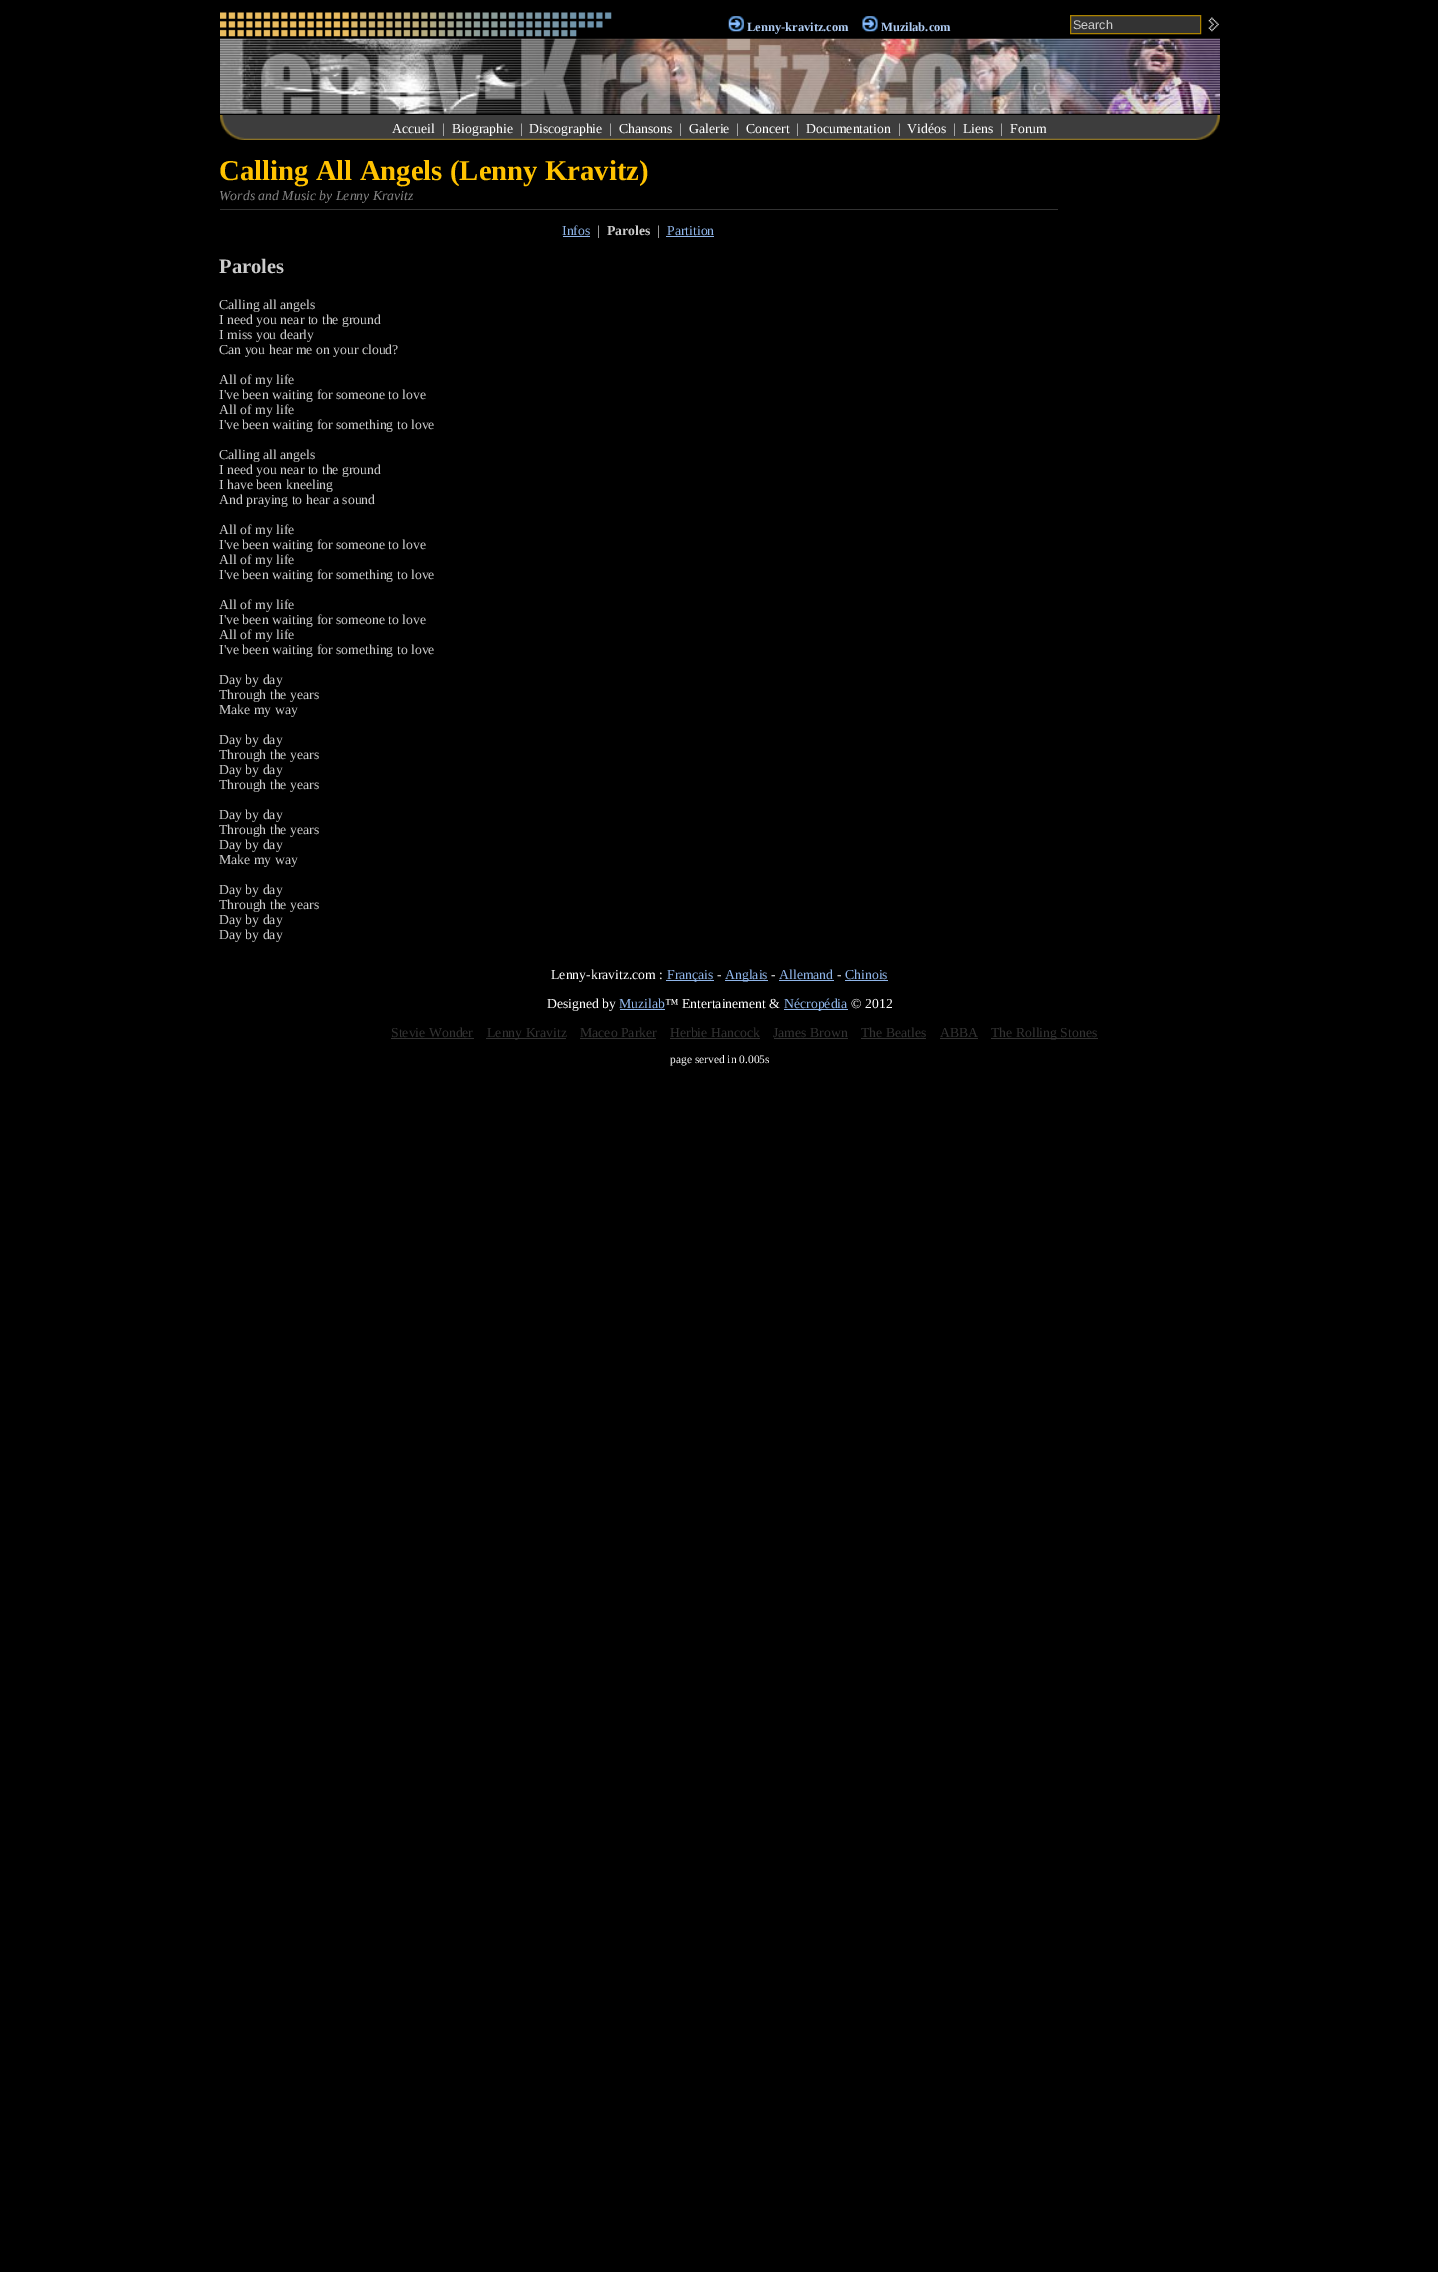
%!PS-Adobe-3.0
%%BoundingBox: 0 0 1438 2272
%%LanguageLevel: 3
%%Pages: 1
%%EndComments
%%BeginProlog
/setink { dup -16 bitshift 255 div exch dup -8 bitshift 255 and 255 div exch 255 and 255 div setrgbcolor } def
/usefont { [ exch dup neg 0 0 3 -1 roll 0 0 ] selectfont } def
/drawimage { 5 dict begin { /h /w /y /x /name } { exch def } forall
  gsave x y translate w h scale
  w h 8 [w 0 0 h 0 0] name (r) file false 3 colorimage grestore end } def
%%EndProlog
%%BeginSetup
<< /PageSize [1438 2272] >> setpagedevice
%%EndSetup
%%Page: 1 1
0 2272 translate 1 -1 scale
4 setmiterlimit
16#000000 setink
0 0 1438 2272 rectfill
(img1.raw) 220 12 392 25 drawimage
(img2.raw) 728 16 16 16 drawimage
/LiberationSerif-Bold 12.5 usefont
16#B0CDF4 setink
747 31 moveto (Lenny-kravitz.com) show
(img3.raw) 862 16 16 16 drawimage
881 31 moveto (Muzilab.com) show
16#333333 setink
1070.5 15.5 moveto 1200.5 15.5 lineto 1200.5 33.5 lineto 1070.5 33.5 lineto closepath gsave fill grestore
16#AB8200 setink
stroke
/LiberationSans-Regular 12.5 usefont
16#CCCCCC setink
1073 29 moveto (Search) show
(img4.raw) 1208 17 11 15 drawimage
(img5.raw) 220 38 1000 76 drawimage
(img6.raw) 244 115 6 25 drawimage
(img7.raw) 220 115 24 25 drawimage
(img8.raw) 250 115 940 25 drawimage
/LiberationSerif-Regular 13.75 usefont
16#FFFFFF setink
392 133 moveto (Accueil) show
16#CCCCCC setink
442 133 moveto (|) show
16#FFFFFF setink
452 133 moveto (Biographie) show
16#CCCCCC setink
520 133 moveto (|) show
16#FFFFFF setink
529 133 moveto (Discographie) show
16#CCCCCC setink
609 133 moveto (|) show
16#FFFFFF setink
619 133 moveto (Chansons) show
16#CCCCCC setink
679 133 moveto (|) show
16#FFFFFF setink
689 133 moveto (Galerie) show
16#CCCCCC setink
736 133 moveto (|) show
16#FFFFFF setink
746 133 moveto (Concert) show
16#CCCCCC setink
796 133 moveto (|) show
16#FFFFFF setink
806 133 moveto (Documentation) show
16#CCCCCC setink
898 133 moveto (|) show
16#FFFFFF setink
907 133 moveto (Vidéos) show
16#CCCCCC setink
953 133 moveto (|) show
16#FFFFFF setink
963 133 moveto (Liens) show
16#CCCCCC setink
1000 133 moveto (|) show
16#FFFFFF setink
1010 133 moveto (Forum) show
(img6.raw) 1190 115 6 25 drawimage
(img9.raw) 1196 115 24 25 drawimage
16#333333 setink
220 209 838 1 rectfill
/LiberationSerif-Bold 28.75 usefont
16#FFC200 setink
219 180 moveto (Calling All Angels \(Lenny Kravitz\)) show
/LiberationSerif-Italic 13.75 usefont
16#888888 setink
219 200 moveto (Words and Music by Lenny Kravitz) show
/LiberationSerif-Regular 13.75 usefont
16#8FB5E9 setink
562 235 moveto (Infos) show
563 236 27 1 rectfill
16#CCCCCC setink
597 235 moveto (|) show
/LiberationSerif-Bold 13.75 usefont
607 235 moveto (Paroles) show
/LiberationSerif-Regular 13.75 usefont
657 235 moveto (|) show
16#8FB5E9 setink
667 235 moveto (Partition) show
666 236 48 1 rectfill
/LiberationSerif-Bold 20.5 usefont
16#CCCCCC setink
219 273 moveto (Paroles) show
/LiberationSerif-Regular 13.75 usefont
[
    [(Calling all angels) 219 309]
    [(I need you near to the ground) 219 324]
    [(I miss you dearly) 219 339]
    [(Can you hear me on your cloud?) 219 354]
    [(All of my life) 219 384]
    [(I've been waiting for someone to love) 219 399]
    [(All of my life) 219 414]
    [(I've been waiting for something to love) 219 429]
    [(Calling all angels) 219 459]
    [(I need you near to the ground) 219 474]
    [(I have been kneeling) 219 489]
    [(And praying to hear a sound) 219 504]
    [(All of my life) 219 534]
    [(I've been waiting for someone to love) 219 549]
    [(All of my life) 219 564]
    [(I've been waiting for something to love) 219 579]
    [(All of my life) 219 609]
    [(I've been waiting for someone to love) 219 624]
    [(All of my life) 219 639]
    [(I've been waiting for something to love) 219 654]
    [(Day by day) 219 684]
    [(Through the years) 219 699]
    [(Make my way) 219 714]
    [(Day by day) 219 744]
    [(Through the years) 219 759]
    [(Day by day) 219 774]
    [(Through the years) 219 789]
    [(Day by day) 219 819]
    [(Through the years) 219 834]
    [(Day by day) 219 849]
    [(Make my way) 219 864]
    [(Day by day) 219 894]
    [(Through the years) 219 909]
    [(Day by day) 219 924]
    [(Day by day) 219 939]
] { aload pop moveto show } forall
16#FFFFFF setink
551 979 moveto (Lenny-kravitz.com :) show
16#8FB5E9 setink
666 980 48 1 rectfill
667 979 moveto (Français) show
16#FFFFFF setink
717 979 moveto (-) show
16#8FB5E9 setink
725 980 43 1 rectfill
725 979 moveto (Anglais) show
16#FFFFFF setink
771 979 moveto (-) show
16#8FB5E9 setink
779 979 moveto (Allemand) show
779 980 55 1 rectfill
16#FFFFFF setink
837 979 moveto (-) show
16#8FB5E9 setink
845 979 moveto (Chinois) show
845 980 43 1 rectfill
16#FFFFFF setink
547 1008 moveto (Designed by) show
16#8FB5E9 setink
619 1008 moveto (Muzilab) show
620 1009 45 1 rectfill
16#FFFFFF setink
665 1008 moveto (™ Entertainement &) show
16#8FB5E9 setink
784 1009 64 1 rectfill
784 1008 moveto (Nécropédia) show
16#FFFFFF setink
851 1008 moveto (© 2012) show
16#333333 setink
391 1037 moveto (Stevie Wonder) show
391 1038 83 1 rectfill
486 1038 80 1 rectfill
487 1037 moveto (Lenny Kravitz) show
580 1037 moveto (Maceo Parker) show
580 1038 76 1 rectfill
670 1037 moveto (Herbie Hancock) show
670 1038 90 1 rectfill
773 1037 moveto (James Brown) show
774 1038 74 1 rectfill
861 1037 moveto (The Beatles) show
861 1038 65 1 rectfill
940 1037 moveto (ABBA) show
940 1038 38 1 rectfill
991 1038 107 1 rectfill
991 1037 moveto (The Rolling Stones) show
/LiberationSerif-Regular 11.5 usefont
16#FFFFFF setink
670 1063 moveto (page served in 0.005s) show
showpage
%%EOF
